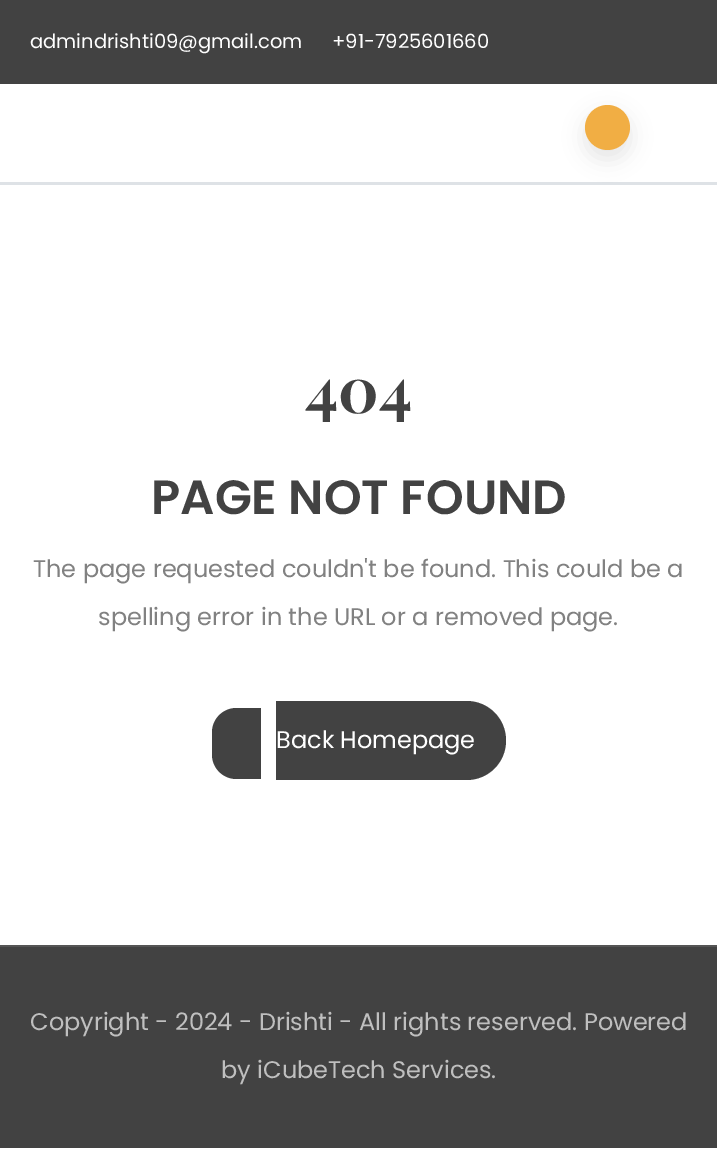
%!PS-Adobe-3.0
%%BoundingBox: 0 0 717 1168
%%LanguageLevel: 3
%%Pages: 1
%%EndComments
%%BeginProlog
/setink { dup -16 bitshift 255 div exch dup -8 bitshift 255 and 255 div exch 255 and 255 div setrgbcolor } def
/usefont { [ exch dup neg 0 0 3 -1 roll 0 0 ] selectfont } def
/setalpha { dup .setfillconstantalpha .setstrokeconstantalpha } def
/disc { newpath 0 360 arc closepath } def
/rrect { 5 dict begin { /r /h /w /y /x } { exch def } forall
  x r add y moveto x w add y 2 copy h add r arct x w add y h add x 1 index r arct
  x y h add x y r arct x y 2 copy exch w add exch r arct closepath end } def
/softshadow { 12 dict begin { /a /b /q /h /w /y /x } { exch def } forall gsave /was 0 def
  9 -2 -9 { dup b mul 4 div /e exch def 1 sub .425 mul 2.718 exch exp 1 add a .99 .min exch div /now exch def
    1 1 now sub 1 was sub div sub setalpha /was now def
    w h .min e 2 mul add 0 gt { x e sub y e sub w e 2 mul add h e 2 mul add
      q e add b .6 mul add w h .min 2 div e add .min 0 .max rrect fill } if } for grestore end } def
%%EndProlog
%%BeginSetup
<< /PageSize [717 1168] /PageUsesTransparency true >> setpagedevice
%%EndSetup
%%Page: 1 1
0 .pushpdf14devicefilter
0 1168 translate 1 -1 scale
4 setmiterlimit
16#FFFFFF setink
0 0 717 1168 rectfill
16#DEE2E6 setink
0 182 717 3 rectfill
16#000000 setink
585 114 45 45 22.5 10.5 0.1 softshadow
16#424242 setink
0 0 717 84 rectfill
/Poppins-Regular 19.5 usefont
16#FFFFFF setink
30 48 moveto (admindrishti09@gmail.com) show
332 48 moveto (+91-7925601660) show
16#F1AE44 setink
607.5 127.5 22.5 disc fill
/PlayfairDisplay-Bold 63 usefont
16#424242 setink
305 413 moveto (404) show
/Poppins-SemiBold 48 usefont
151 514 moveto (PAGE NOT FOUND) show
/Poppins-Regular 24 usefont
16#818181 setink
33 577 moveto (The page requested couldn't be found. This could be a) show
98 625 moveto (spelling error in the URL or a removed page.) show
16#424242 setink
276 701 moveto 466.5 701 lineto 488.5 701 506 718.5 506 740.5 curveto 506 762.5 488.5 780 466.5 780 curveto 276 780 lineto closepath fill
16#FFFFFF setink
276 748 moveto (Back Homepage) show
16#424242 setink
236.5 708 moveto 261 708 lineto 261 779 lineto 236.5 779 lineto 223 779 212 768 212 754.5 curveto 212 732.5 lineto 212 719 223 708 236.5 708 curveto closepath fill
0 947 717 201 rectfill
16#555555 setink
0 945 717 2 rectfill
16#BFBFBF setink
30 1030 moveto (Copyright - 2024 - Drishti - All rights reserved. Powered) show
221 1078 moveto (by iCubeTech Services.) show
.poppdf14devicefilter showpage
%%EOF
